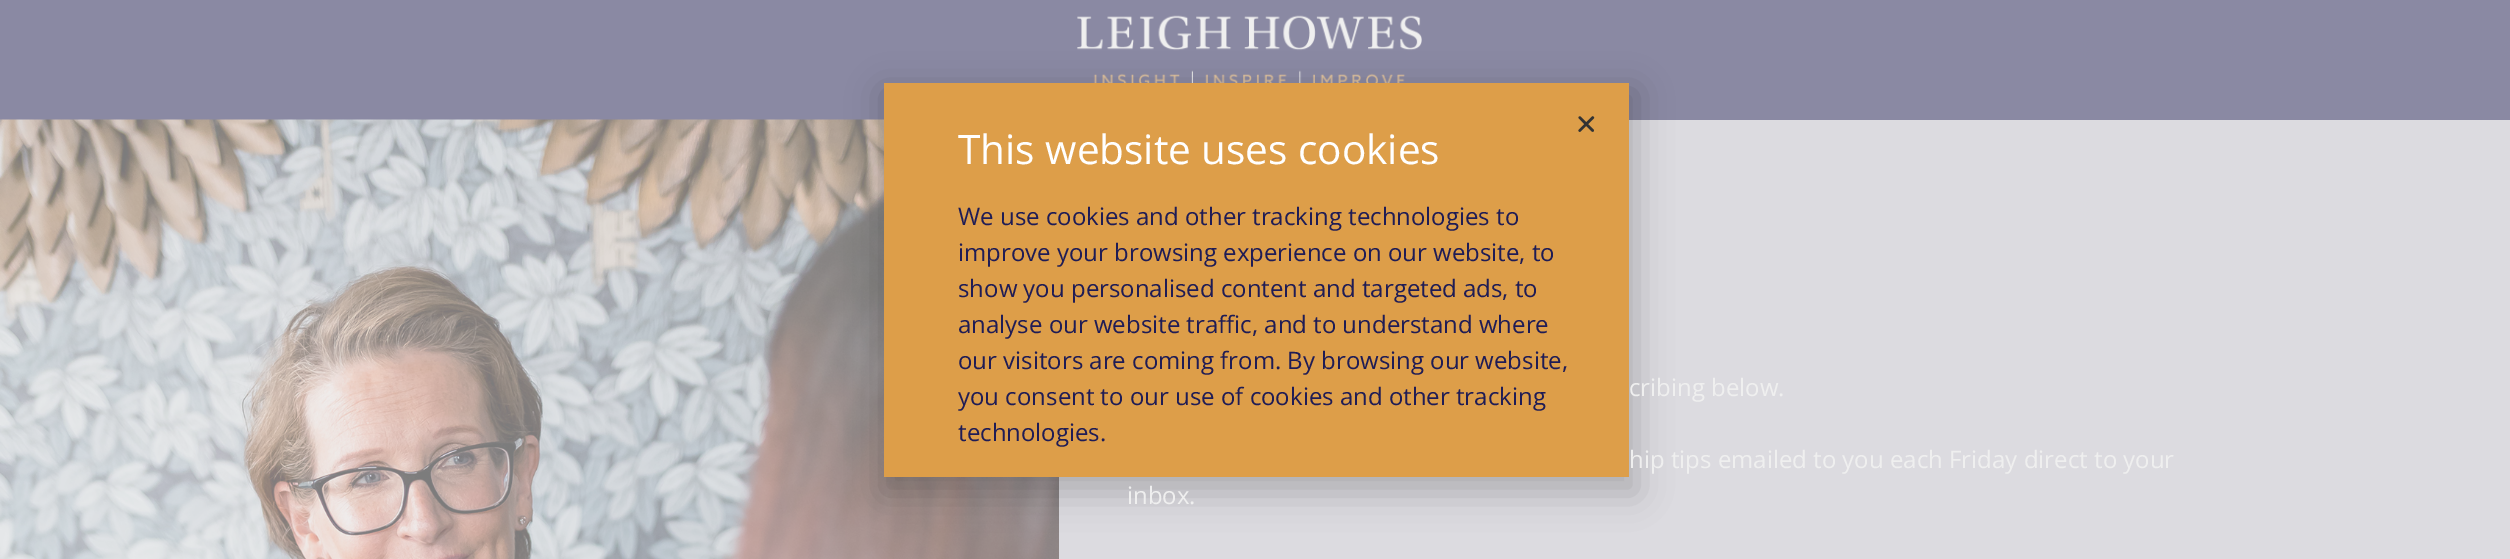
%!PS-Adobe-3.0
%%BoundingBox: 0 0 2510 559
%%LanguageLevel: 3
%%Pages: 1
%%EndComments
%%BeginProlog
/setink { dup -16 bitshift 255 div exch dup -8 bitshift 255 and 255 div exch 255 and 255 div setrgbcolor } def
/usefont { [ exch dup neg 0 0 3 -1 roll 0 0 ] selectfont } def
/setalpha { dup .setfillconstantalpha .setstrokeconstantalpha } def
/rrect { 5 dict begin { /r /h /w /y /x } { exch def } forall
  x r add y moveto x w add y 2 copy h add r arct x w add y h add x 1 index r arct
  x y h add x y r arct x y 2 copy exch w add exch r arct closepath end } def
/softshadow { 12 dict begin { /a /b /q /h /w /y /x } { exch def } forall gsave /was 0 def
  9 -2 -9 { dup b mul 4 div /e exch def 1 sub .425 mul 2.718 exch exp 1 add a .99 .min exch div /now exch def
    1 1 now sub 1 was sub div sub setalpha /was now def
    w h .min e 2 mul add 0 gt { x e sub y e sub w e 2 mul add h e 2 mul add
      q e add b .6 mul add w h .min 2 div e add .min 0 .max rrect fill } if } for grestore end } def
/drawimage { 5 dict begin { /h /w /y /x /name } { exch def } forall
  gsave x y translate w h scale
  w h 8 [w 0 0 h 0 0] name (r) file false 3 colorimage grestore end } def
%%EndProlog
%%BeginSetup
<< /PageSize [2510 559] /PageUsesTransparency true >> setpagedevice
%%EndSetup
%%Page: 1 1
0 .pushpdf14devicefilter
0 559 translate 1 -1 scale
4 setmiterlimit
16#DCDBE0 setink
0 0 2510 559 rectfill
16#8A89A3 setink
0 0 2510 120 rectfill
(img1.raw) 1077 15 345 68 drawimage
(img3.raw) 0 119 1059 440 drawimage
16#000000 setink
882 90 755 404 0 17 0.2 softshadow
16#DD9E49 setink
884 83 745 394 rectfill
(img2.raw) 1578 116 17 16 drawimage
/OpenSans-Regular 40.5 usefont
16#FFFFFF setink
958 164 moveto (This website uses cookies) show
/OpenSans-Regular 24 usefont
16#1F1C55 setink
[
    [(We use cookies and other tracking technologies to) 958 225]
    [(improve your browsing experience on our website, to) 958 261]
    [(show you personalised content and targeted ads, to) 958 297]
    [(analyse our website traffic, and to understand where) 958 333]
    [(our visitors are coming from. By browsing our website,) 958 369]
    [(you consent to our use of cookies and other tracking) 958 405]
    [(technologies.) 958 441]
] { aload pop moveto show } forall
16#EFEFEF setink
[
    [(cribing below.) 1629 396]
    [(hip tips emailed to you each Friday direct to your) 1629 468]
    [(inbox.) 1127 504]
] { aload pop moveto show } forall
.poppdf14devicefilter showpage
%%EOF
